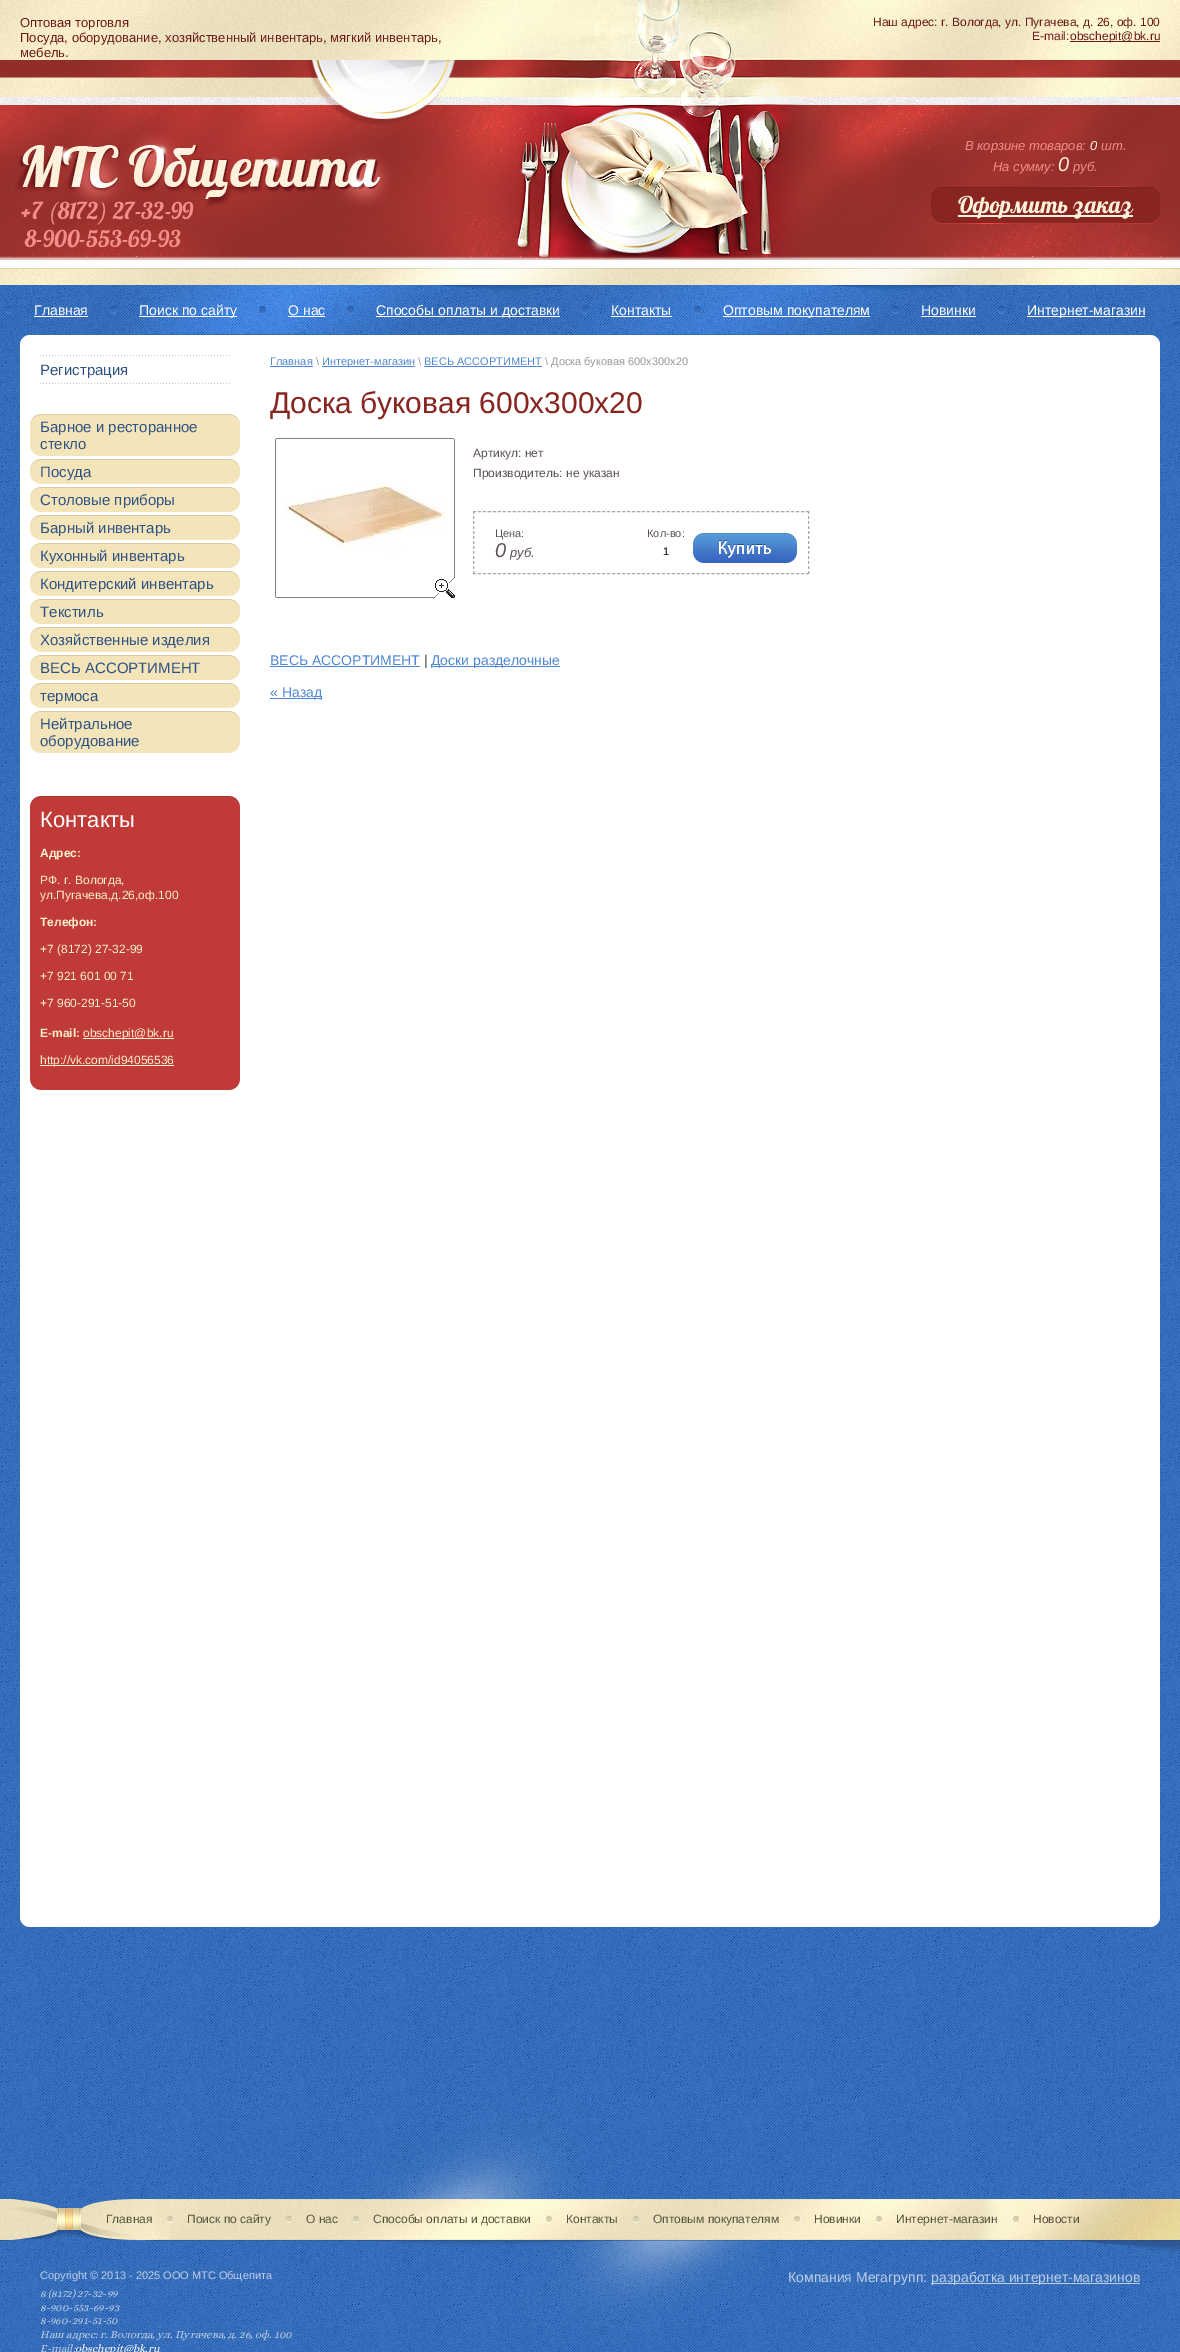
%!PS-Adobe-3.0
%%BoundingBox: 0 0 1180 2352
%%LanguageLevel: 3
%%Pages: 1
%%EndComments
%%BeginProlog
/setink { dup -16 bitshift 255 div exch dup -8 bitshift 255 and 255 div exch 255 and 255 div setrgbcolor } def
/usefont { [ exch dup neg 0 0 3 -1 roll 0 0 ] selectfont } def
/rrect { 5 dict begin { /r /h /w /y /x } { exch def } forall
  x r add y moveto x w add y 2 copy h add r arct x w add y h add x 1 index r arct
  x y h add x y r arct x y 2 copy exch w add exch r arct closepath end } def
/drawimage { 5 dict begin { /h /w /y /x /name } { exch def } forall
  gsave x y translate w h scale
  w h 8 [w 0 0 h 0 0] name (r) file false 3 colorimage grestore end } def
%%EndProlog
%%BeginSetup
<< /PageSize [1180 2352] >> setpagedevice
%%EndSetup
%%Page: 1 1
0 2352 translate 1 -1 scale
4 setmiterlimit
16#FFFFFF setink
0 0 1180 2352 rectfill
(img1.raw) 0 335 1180 2017 drawimage
(img2.raw) 0 0 1180 335 drawimage
/LiberationSans-Regular 13 usefont
16#6B1717 setink
[
    [(Оптовая торговля) 20 27]
    [(Посуда, оборудование, хозяйственный инвентарь, мягкий инвентарь,) 20 42]
    [(мебель.) 20 57]
] { aload pop moveto show } forall
/LiberationSans-Regular 12 usefont
873 26 moveto (Наш адрес: г. Вологда, ул. Пугачева, д. 26, оф. 100) show
1032 40 moveto (E-mail:) show
1070 41 90 1 rectfill
1070 40 moveto (obschepit@bk.ru) show
(img3.raw) 14 134 377 73 drawimage
/LiberationSans-Italic 13 usefont
16#F38E8A setink
965 150 moveto (В корзине товаров:) show
16#FDF1DB setink
1090 150 moveto (0) show
16#F38E8A setink
1101 150 moveto (шт.) show
993 171 moveto (На сумму:) show
/LiberationSans-Italic 20 usefont
16#FDF1DB setink
1058 171 moveto (0) show
/LiberationSans-Italic 13 usefont
16#F38E8A setink
1073 171 moveto (руб.) show
(img4.raw) 931 186 229 38 drawimage
16#FDF1DB setink
958 215 175 2 rectfill
/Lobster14-Regular 23 usefont
958 213 moveto (Оформить заказ) show
16#F38E8A setink
20 219 moveto (+7 \(8172\) 27-32-99) show
25 247 moveto (8-900-553-69-93) show
(img5.raw) 1173 322 7 4 drawimage
(img6.raw) 5 306 7 8 drawimage
/LiberationSans-Regular 14 usefont
16#FFFFFF setink
34 315 moveto (Главная) show
34 316 54 1 rectfill
(img7.raw) 110 306 7 8 drawimage
139 316 98 1 rectfill
139 315 moveto (Поиск по сайту) show
(img8.raw) 259 306 7 8 drawimage
288 315 moveto (О нас) show
288 316 37 1 rectfill
(img9.raw) 347 306 7 8 drawimage
376 316 184 1 rectfill
376 315 moveto (Способы оплаты и доставки) show
(img10.raw) 582 306 7 8 drawimage
611 315 moveto (Контакты) show
611 316 61 1 rectfill
(img11.raw) 694 306 7 8 drawimage
723 316 147 1 rectfill
723 315 moveto (Оптовым покупателям) show
(img12.raw) 892 306 7 8 drawimage
921 315 moveto (Новинки) show
921 316 55 1 rectfill
(img13.raw) 998 306 7 8 drawimage
1027 316 118 1 rectfill
1027 315 moveto (Интернет-магазин) show
20 335 1140 1592 10 rrect fill
(img14.raw) 40 383 190 1 drawimage
(img14.raw) 40 355 190 1 drawimage
/LiberationSans-Regular 15 usefont
16#2F5283 setink
40 375 moveto (Регистрация) show
(img15.raw) 30 414 210 32 drawimage
(img16.raw) 30 446 210 10 drawimage
40 432 moveto (Барное и ресторанное) show
40 449 moveto (стекло) show
(img17.raw) 30 459 210 15 drawimage
(img16.raw) 30 474 210 10 drawimage
40 477 moveto (Посуда) show
(img17.raw) 30 487 210 15 drawimage
(img16.raw) 30 502 210 10 drawimage
40 505 moveto (Столовые приборы) show
(img17.raw) 30 515 210 15 drawimage
(img16.raw) 30 530 210 10 drawimage
40 533 moveto (Барный инвентарь) show
(img17.raw) 30 543 210 15 drawimage
(img16.raw) 30 558 210 10 drawimage
40 561 moveto (Кухонный инвентарь) show
(img17.raw) 30 571 210 15 drawimage
(img16.raw) 30 586 210 10 drawimage
40 589 moveto (Кондитерский инвентарь) show
(img17.raw) 30 599 210 15 drawimage
(img16.raw) 30 614 210 10 drawimage
40 617 moveto (Текстиль) show
(img17.raw) 30 627 210 15 drawimage
(img16.raw) 30 642 210 10 drawimage
40 645 moveto (Хозяйственные изделия) show
(img17.raw) 30 655 210 15 drawimage
(img16.raw) 30 670 210 10 drawimage
40 673 moveto (ВЕСЬ АССОРТИМЕНТ) show
(img17.raw) 30 683 210 15 drawimage
(img16.raw) 30 698 210 10 drawimage
40 701 moveto (термоса) show
(img15.raw) 30 711 210 32 drawimage
(img16.raw) 30 743 210 10 drawimage
40 729 moveto (Нейтральное) show
40 746 moveto (оборудование) show
(img18.raw) 30 796 210 11 drawimage
(img19.raw) 30 1079 210 11 drawimage
16#C03A37 setink
30 807 210 272 rectfill
/LiberationSans-Regular 22 usefont
16#FFFFFF setink
40 827 moveto (Контакты) show
/LiberationSans-Bold 12 usefont
16#FBEFCD setink
40 857 moveto (Адрес:) show
/LiberationSans-Regular 12 usefont
40 884 moveto (РФ. г. Вологда,) show
40 899 moveto (ул.Пугачева,д.26,оф.100) show
/LiberationSans-Bold 12 usefont
40 926 moveto (Телефон:) show
/LiberationSans-Regular 12 usefont
[
    [(+7 \(8172\) 27-32-99) 40 953]
    [(+7 921 601 00 71) 40 980]
    [(+7 960-291-51-50) 40 1007]
] { aload pop moveto show } forall
/LiberationSans-Bold 12 usefont
40 1037 moveto (E-mail:) show
83 1038 91 1 rectfill
/LiberationSans-Regular 12 usefont
83 1037 moveto (obschepit@bk.ru) show
40 1065 134 1 rectfill
40 1064 moveto (http://vk.com/id94056536) show
/LiberationSans-Regular 11 usefont
16#4F87D5 setink
270 365 moveto (Главная) show
270 366 43 1 rectfill
16#999999 setink
316 365 moveto (\\) show
16#4F87D5 setink
322 366 93 1 rectfill
322 365 moveto (Интернет-магазин) show
16#999999 setink
418 365 moveto (\\) show
16#4F87D5 setink
424 365 moveto (ВЕСЬ АССОРТИМЕНТ) show
424 366 118 1 rectfill
16#999999 setink
545 365 moveto (\\ Доска буковая 600х300х20) show
/LiberationSans-Regular 30 usefont
16#882521 setink
270 413 moveto (Доска буковая 600х300х20) show
(img20.raw) 275 438 180 160 drawimage
/LiberationSans-Regular 12 usefont
16#5B5252 setink
473 457 moveto (Артикул: нет) show
473 477 moveto (Производитель: не указан) show
16#A8A8A8 setink
[3 1.97] 0 setdash
473 511.5 moveto 809 511.5 lineto stroke
[3 2] 0 setdash
808.5 511 moveto 808.5 574 lineto stroke
[3 1.97] 0 setdash
473 573.5 moveto 809 573.5 lineto stroke
[3 2] 0 setdash
473.5 511 moveto 473.5 574 lineto stroke
/LiberationSans-Regular 11 usefont
16#5B5252 setink
495 537 moveto (Цена:) show
/LiberationSans-Italic 20 usefont
495 557 moveto (0) show
/LiberationSans-Italic 13 usefont
510 557 moveto (руб.) show
/LiberationSans-Regular 11 usefont
647 537 moveto (Кол-во:) show
16#000000 setink
663 555 moveto (1) show
(img21.raw) 693 533 104 30 drawimage
/LiberationSans-Regular 14 usefont
16#4F87D5 setink
270 665 moveto (ВЕСЬ АССОРТИМЕНТ) show
270 666 150 1 rectfill
16#5B5252 setink
424 665 moveto (|) show
16#4F87D5 setink
431 666 129 1 rectfill
431 665 moveto (Доски разделочные) show
270 698 52 1 rectfill
270 697 moveto (« Назад) show
(img22.raw) 0 2199 1180 42 drawimage
(img23.raw) 169 2097 842 255 drawimage
(img24.raw) 0 2198 172 43 drawimage
(img25.raw) 980 2199 200 55 drawimage
/LiberationSans-Regular 12 usefont
16#5A5340 setink
106 2223 moveto (Главная) show
(img26.raw) 167 2216 6 7 drawimage
187 2223 moveto (Поиск по сайту) show
(img27.raw) 286 2216 6 7 drawimage
306 2223 moveto (О нас) show
(img28.raw) 353 2216 6 7 drawimage
373 2223 moveto (Способы оплаты и доставки) show
(img29.raw) 546 2216 6 7 drawimage
566 2223 moveto (Контакты) show
(img30.raw) 633 2216 6 7 drawimage
653 2223 moveto (Оптовым покупателям) show
(img31.raw) 794 2216 6 7 drawimage
814 2223 moveto (Новинки) show
(img32.raw) 876 2216 6 7 drawimage
896 2223 moveto (Интернет-магазин) show
(img33.raw) 1013 2216 6 7 drawimage
1033 2223 moveto (Новости) show
/LiberationSans-Regular 11 usefont
16#BDCFE8 setink
40 2279 moveto (Copyright © 2013 - 2025 ООО МТС Общепита) show
/Alice-Italic 11 usefont
[
    [(8 \(8172\) 27-32-99) 40 2297]
    [(8-900-553-69-93) 40 2311]
    [(8-960-291-51-50) 40 2324]
    [(Наш адрес: г. Вологда, ул. Пугачева, д. 26, оф. 100) 40 2338]
    [(E-mail:) 40 2352]
] { aload pop moveto show } forall
16#FFFFFF setink
75 2352 moveto (obschepit@bk.ru) show
/LiberationSans-Regular 14 usefont
16#BDCFE8 setink
788 2282 moveto (Компания Мегагрупп:) show
931 2283 209 1 rectfill
931 2282 moveto (разработка интернет-магазинов) show
showpage
%%EOF
